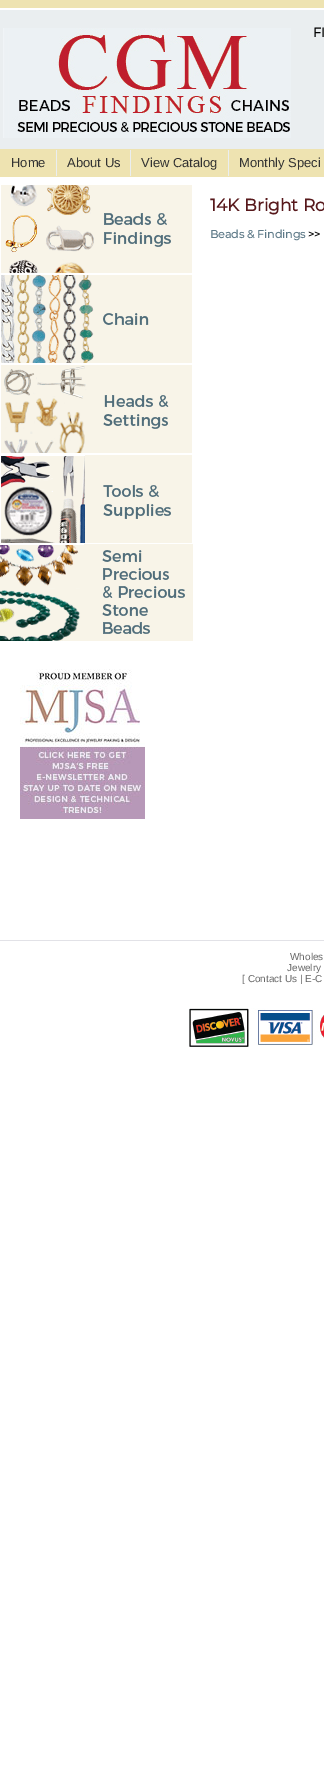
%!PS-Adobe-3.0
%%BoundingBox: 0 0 324 1791
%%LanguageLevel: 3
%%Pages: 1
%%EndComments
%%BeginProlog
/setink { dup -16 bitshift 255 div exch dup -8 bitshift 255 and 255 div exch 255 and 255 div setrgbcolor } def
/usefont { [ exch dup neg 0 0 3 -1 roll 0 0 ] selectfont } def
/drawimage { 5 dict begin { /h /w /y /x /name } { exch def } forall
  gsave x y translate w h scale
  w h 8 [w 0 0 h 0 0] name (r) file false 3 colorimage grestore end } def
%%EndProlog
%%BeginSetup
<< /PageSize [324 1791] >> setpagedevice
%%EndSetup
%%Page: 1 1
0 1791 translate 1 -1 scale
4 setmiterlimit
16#FFFFFF setink
0 0 324 1791 rectfill
16#EEE3B1 setink
0 0 324 8 rectfill
16#EAEEF0 setink
0 10 324 139 rectfill
(img1.raw) 3 28 288 110 drawimage
/Montserrat-Bold 13 usefont
16#000000 setink
313 37 moveto (FI) show
16#EEE3B1 setink
0 149 324 28 rectfill
16#EAEEF0 setink
56 150 1 26 rectfill
/LiberationSans-Regular 13 usefont
16#323232 setink
11 167 moveto (Home) show
16#EAEEF0 setink
130 150 1 26 rectfill
16#323232 setink
67 167 moveto (About Us) show
16#EAEEF0 setink
228 150 1 26 rectfill
16#323232 setink
141 167 moveto (View Catalog) show
239 167 moveto (Monthly Speci) show
(img2.raw) 1 185 191 88 drawimage
(img3.raw) 1 275 191 88 drawimage
(img4.raw) 1 365 191 88 drawimage
(img5.raw) 1 455 191 88 drawimage
(img6.raw) 0 544 193 97 drawimage
(img7.raw) 20 669 125 150 drawimage
/Montserrat-Bold 17 usefont
16#57181B setink
210 211 moveto (14K Bright Ro) show
/Montserrat-Bold 11 usefont
16#5E7A88 setink
210 238 moveto (Beads & Findings) show
16#000000 setink
308 238 moveto (>>) show
16#E2E2E7 setink
0 940 324 1 rectfill
/LiberationSans-Regular 10 usefont
16#666666 setink
[
    [(Wholes) 290 960]
    [(Jewelry) 287 971]
    [([ Contact Us | E-C) 242 982]
] { aload pop moveto show } forall
(img8.raw) 189 1008 135 39 drawimage
showpage
%%EOF
